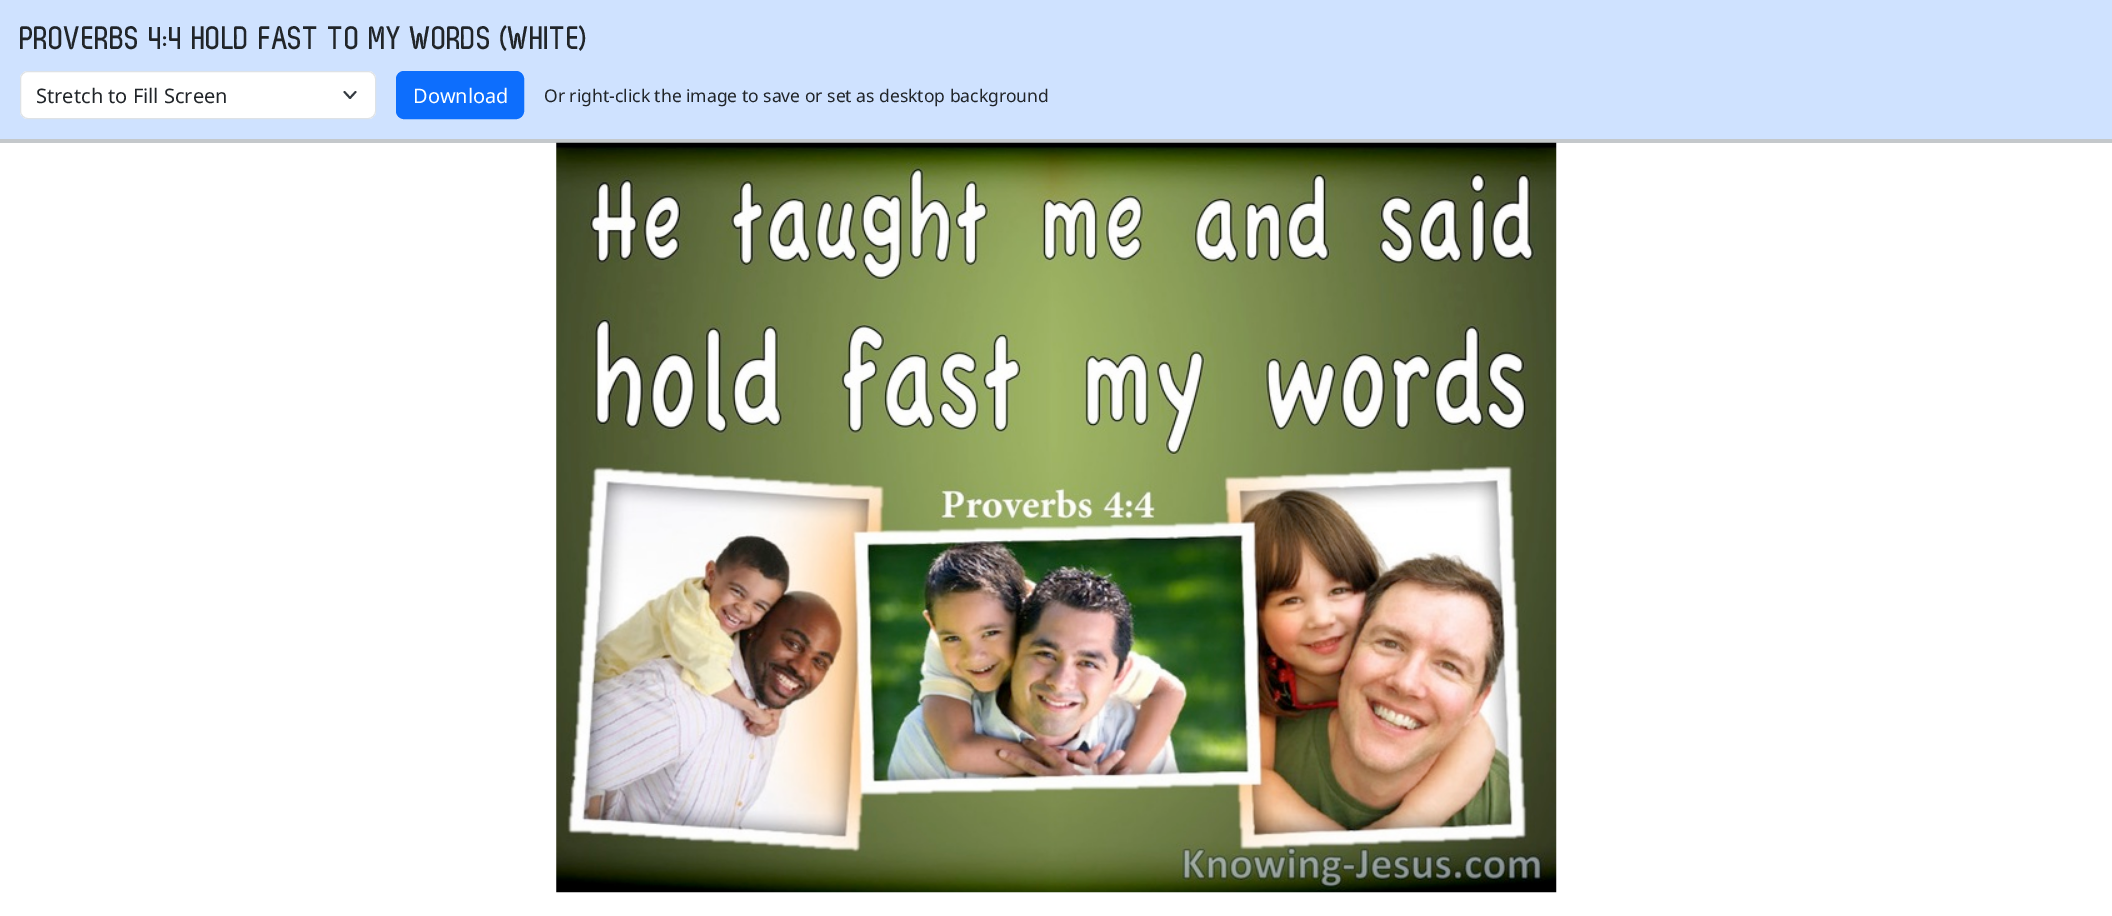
%!PS-Adobe-3.0
%%BoundingBox: 0 0 2112 916
%%LanguageLevel: 3
%%Pages: 1
%%EndComments
%%BeginProlog
/setink { dup -16 bitshift 255 div exch dup -8 bitshift 255 and 255 div exch 255 and 255 div setrgbcolor } def
/usefont { [ exch dup neg 0 0 3 -1 roll 0 0 ] selectfont } def
/rrect { 5 dict begin { /r /h /w /y /x } { exch def } forall
  x r add y moveto x w add y 2 copy h add r arct x w add y h add x 1 index r arct
  x y h add x y r arct x y 2 copy exch w add exch r arct closepath end } def
/drawimage { 5 dict begin { /h /w /y /x /name } { exch def } forall
  gsave x y translate w h scale
  w h 8 [w 0 0 h 0 0] name (r) file false 3 colorimage grestore end } def
%%EndProlog
%%BeginSetup
<< /PageSize [2112 916] >> setpagedevice
%%EndSetup
%%Page: 1 1
0 916 translate 1 -1 scale
4 setmiterlimit
16#FFFFFF setink
0 0 2112 916 rectfill
16#CFE2FF setink
0 0 2112 139 rectfill
16#C4C8CB setink
0 139 2112 4 rectfill
/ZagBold-Bold 32.5 usefont
16#212529 setink
20 49 moveto (PROVERBS 4:4 HOLD FAST TO MY WORDS \(WHITE\)) show
16#FFFFFF setink
20 71 356 48 8 rrect fill
16#343A40 setink
1.9 setlinewidth
1 setlinecap
1 setlinejoin
344.5 92 moveto 350 98 lineto 355.5 92 lineto stroke
16#DEE2E6 setink
1 setlinewidth
0 setlinecap
0 setlinejoin
20.5 71.5 355 47 7.5 rrect stroke
/NotoSans-Regular 20 usefont
16#212529 setink
36 103 moveto (Stretch to Fill Screen) show
16#0D6EFD setink
396.5 71.5 127 47 7.5 rrect gsave fill grestore
stroke
16#FFFFFF setink
413 103 moveto (Download) show
/NotoSans-Regular 17.5 usefont
16#212529 setink
544 102 moveto (Or right-click the image to save or set as desktop background) show
(img1.raw) 556 142 1001 751 drawimage
showpage
%%EOF
